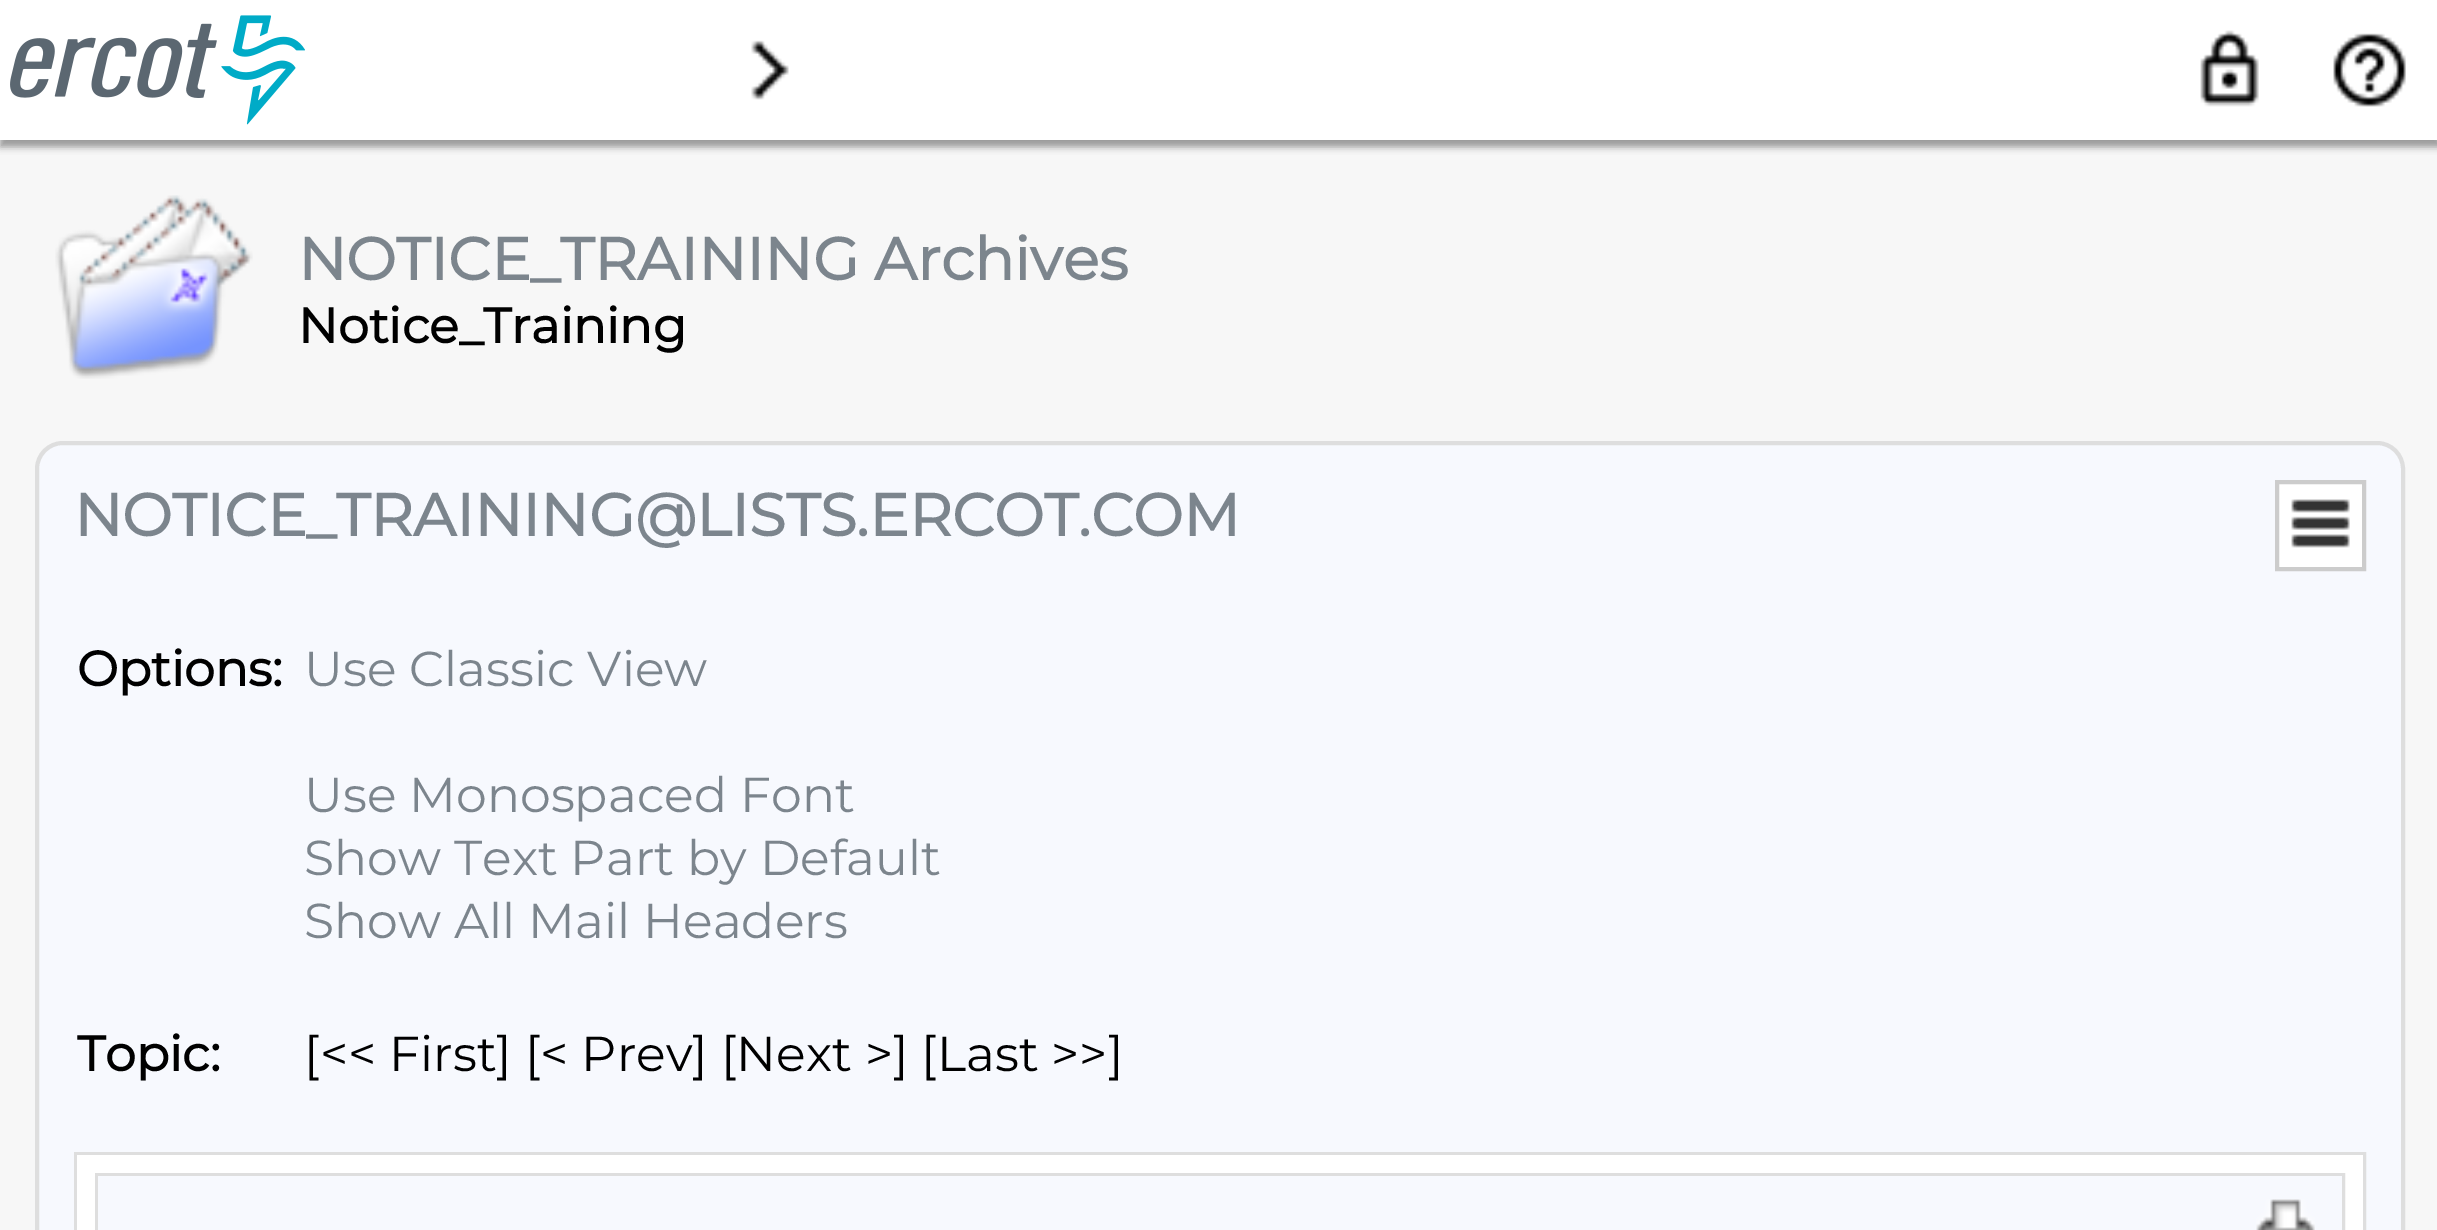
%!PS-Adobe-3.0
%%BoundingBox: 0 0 2437 1230
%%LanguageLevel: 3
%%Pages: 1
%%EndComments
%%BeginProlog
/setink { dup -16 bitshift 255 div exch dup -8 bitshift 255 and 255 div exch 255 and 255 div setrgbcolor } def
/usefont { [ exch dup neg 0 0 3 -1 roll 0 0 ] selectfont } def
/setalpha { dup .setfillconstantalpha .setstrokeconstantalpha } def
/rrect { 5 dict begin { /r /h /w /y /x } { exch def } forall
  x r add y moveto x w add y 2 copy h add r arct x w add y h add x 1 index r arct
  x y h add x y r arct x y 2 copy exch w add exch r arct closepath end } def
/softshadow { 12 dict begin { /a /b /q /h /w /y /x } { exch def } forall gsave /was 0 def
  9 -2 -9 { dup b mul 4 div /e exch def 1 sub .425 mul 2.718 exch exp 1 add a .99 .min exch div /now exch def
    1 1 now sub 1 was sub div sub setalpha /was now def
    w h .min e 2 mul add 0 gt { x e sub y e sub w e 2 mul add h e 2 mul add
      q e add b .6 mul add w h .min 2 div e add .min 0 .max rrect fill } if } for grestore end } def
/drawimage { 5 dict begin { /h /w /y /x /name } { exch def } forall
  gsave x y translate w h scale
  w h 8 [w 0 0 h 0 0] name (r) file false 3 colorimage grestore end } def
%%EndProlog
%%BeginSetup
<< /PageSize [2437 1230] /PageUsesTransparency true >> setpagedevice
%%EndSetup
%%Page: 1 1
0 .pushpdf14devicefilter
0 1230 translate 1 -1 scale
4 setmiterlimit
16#F7F7F7 setink
0 0 2437 1230 rectfill
16#999999 setink
0 7 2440 140 0 3.5 1 softshadow
16#FFFFFF setink
0 0 2437 140 rectfill
(img1.raw) 10 15 295 110 drawimage
(img2.raw) 751 40 38 60 drawimage
(img3.raw) 2200 30 59 77 drawimage
(img4.raw) 2333 33 73 74 drawimage
(img5.raw) 55 195 198 184 drawimage
/Montserrat-Bold 59.5 usefont
16#7C858D setink
298 280 moveto (NOTICE_TRAINING Archives) show
/Montserrat-Bold 49 usefont
16#000000 setink
298 343 moveto (Notice_Training) show
16#F7F9FE setink
37 443 2366 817 26 rrect gsave fill grestore
16#DEDEDE setink
4 setlinewidth
stroke
/Montserrat-Bold 59.5 usefont
16#7C858D setink
74 536 moveto (NOTICE_TRAINING@LISTS.ERCOT.COM) show
16#FFFFFF setink
2277 482 moveto 2364 482 lineto 2364 569 lineto 2277 569 lineto closepath gsave fill grestore
16#CCCCCC setink
stroke
(img6.raw) 2291 499 59 49 drawimage
/Montserrat-Bold 49 usefont
16#000000 setink
77 686 moveto (Options:) show
/Montserrat-Thin 49 usefont
16#7C858D setink
[
    [(Use Classic View) 304 686]
    [(Use Monospaced Font) 304 812]
    [(Show Text Part by Default) 304 875]
    [(Show All Mail Headers) 304 938]
] { aload pop moveto show } forall
/Montserrat-Bold 49 usefont
16#000000 setink
77 1071 moveto (Topic:) show
/Montserrat-Thin 49 usefont
304 1071 moveto ([<< First] [< Prev] [Next >] [Last >>]) show
16#DEDEDE setink
76 1154 2288 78 rectstroke
16#FFFFFF setink
77 1155 2286 75 rectfill
16#DEDEDE setink
97 1175 2246 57 rectstroke
16#F7F9FE setink
98 1176 2244 54 rectfill
(img7.raw) 2256 1199 59 31 drawimage
.poppdf14devicefilter showpage
%%EOF
